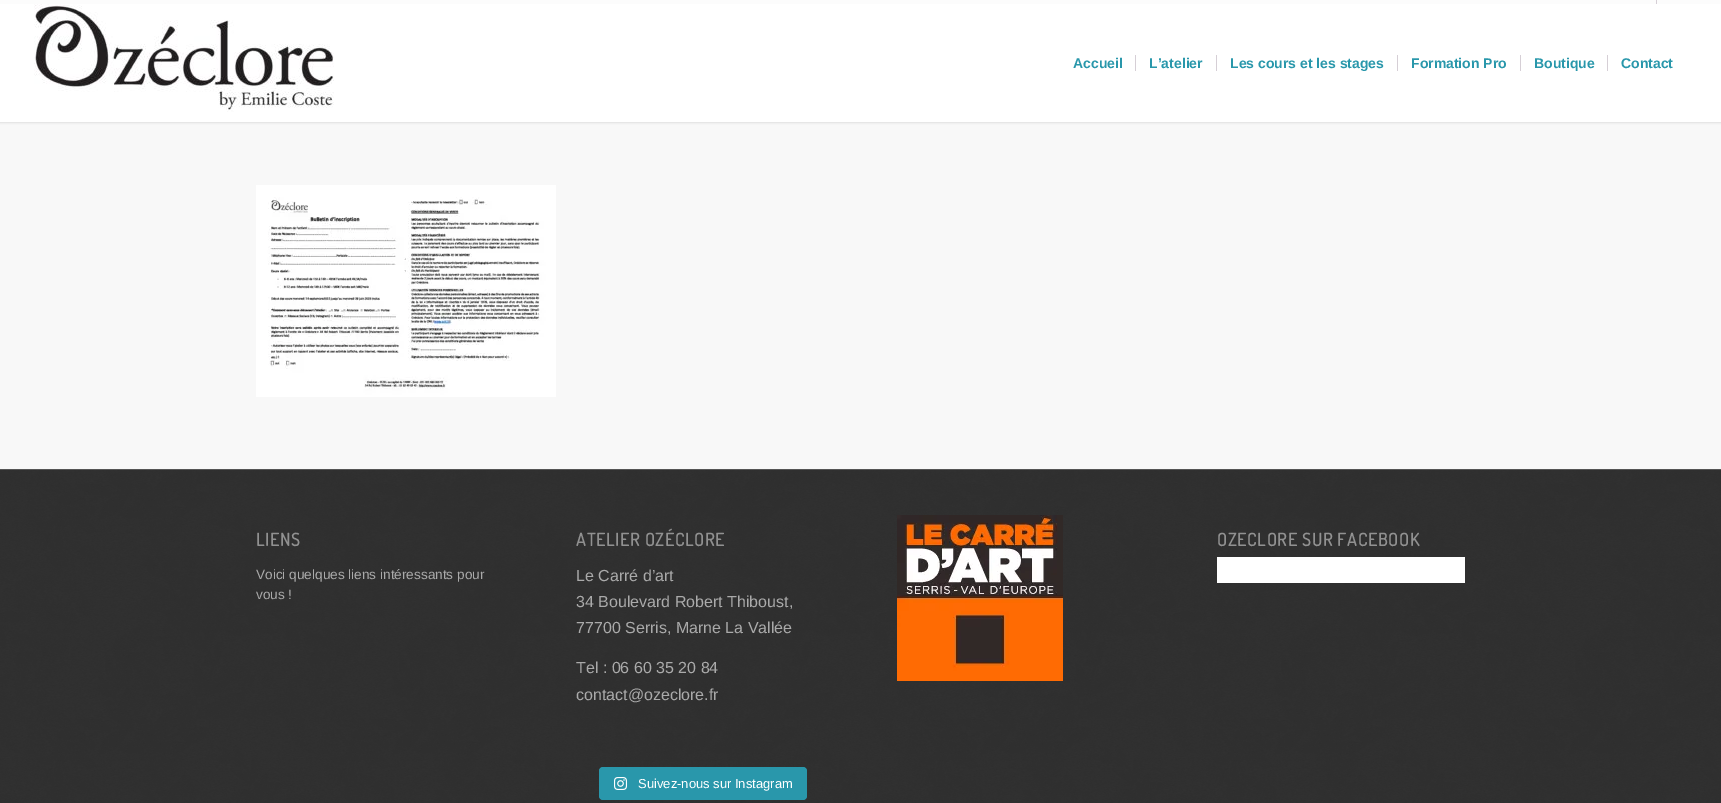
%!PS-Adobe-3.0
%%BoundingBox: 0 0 1721 803
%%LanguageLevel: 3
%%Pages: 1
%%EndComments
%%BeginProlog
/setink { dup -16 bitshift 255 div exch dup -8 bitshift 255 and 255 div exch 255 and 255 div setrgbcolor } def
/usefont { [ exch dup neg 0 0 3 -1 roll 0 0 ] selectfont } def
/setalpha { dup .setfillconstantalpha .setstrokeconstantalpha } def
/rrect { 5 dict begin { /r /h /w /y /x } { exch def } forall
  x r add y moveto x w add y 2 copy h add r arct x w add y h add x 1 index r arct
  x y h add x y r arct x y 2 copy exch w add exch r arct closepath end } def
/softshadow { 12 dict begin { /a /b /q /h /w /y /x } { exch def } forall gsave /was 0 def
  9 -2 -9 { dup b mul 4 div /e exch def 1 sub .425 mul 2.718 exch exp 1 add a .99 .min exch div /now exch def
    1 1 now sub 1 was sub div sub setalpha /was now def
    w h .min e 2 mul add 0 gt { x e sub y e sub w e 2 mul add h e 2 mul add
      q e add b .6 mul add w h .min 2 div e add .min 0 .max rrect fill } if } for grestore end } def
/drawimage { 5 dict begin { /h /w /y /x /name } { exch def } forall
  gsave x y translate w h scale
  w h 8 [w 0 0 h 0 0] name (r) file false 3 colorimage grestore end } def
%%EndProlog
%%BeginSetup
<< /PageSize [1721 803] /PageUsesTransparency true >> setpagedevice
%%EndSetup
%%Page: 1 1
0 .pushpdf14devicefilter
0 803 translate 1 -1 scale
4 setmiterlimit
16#F8F8F8 setink
0 0 1721 803 rectfill
16#000000 setink
-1 -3 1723 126 0 1 0.1 softshadow
[
    [0 0 1721 4 16#FCFCFC]
    [1656 0 1 4 16#D6CFD6]
    [0 4 1721 118 16#FFFFFF]
] { aload pop setink rectfill } forall
(img1.raw) 34 4 300 108 drawimage
/LiberationSans-Bold 14 usefont
16#2997AB setink
1073 68 moveto (Accueil) show
1149 68 moveto (L’atelier) show
16#D6CFD6 setink
1135 55 1 16 rectfill
16#2997AB setink
1230 68 moveto (Les cours et les stages) show
16#D6CFD6 setink
1216 55 1 16 rectfill
16#2997AB setink
1411 68 moveto (Formation Pro) show
16#D6CFD6 setink
1397 55 1 16 rectfill
16#2997AB setink
1534 68 moveto (Boutique) show
16#D6CFD6 setink
1520 55 1 16 rectfill
16#2997AB setink
1621 68 moveto (Contact) show
16#D6CFD6 setink
1607 55 1 16 rectfill
(img2.raw) 256 185 300 212 drawimage
16#333333 setink
0 470 1721 333 rectfill
(img3.raw) 0 470 1721 333 drawimage
16#555555 setink
0 469 1721 1 rectfill
/Dosis-Bold 17.6 usefont
16#919191 setink
256 546 moveto 1 0 (LIENS) ashow
/LiberationSans-Regular 13.6 usefont
16#AAAAAA setink
256 579 moveto (Voici quelques liens intéressants pour) show
256 599 moveto (vous !) show
/Dosis-Bold 17.6 usefont
16#919191 setink
576 546 moveto 1 0 (ATELIER OZÉCLORE) ashow
/LiberationSans-Regular 16 usefont
16#AAAAAA setink
[
    [(Le Carré d’art) 576 581]
    [(34 Boulevard Robert Thiboust,) 576 607]
    [(77700 Serris, Marne La Vallée) 576 633]
    [(Tel : 06 60 35 20 84) 576 673]
    [(contact@ozeclore.fr) 576 700]
] { aload pop moveto show } forall
16#2997AB setink
599 767 208 33 4 rrect fill
(img4.raw) 614 777 14 13 drawimage
/LiberationSans-Regular 13 usefont
16#FFFFFF setink
638 788 moveto (Suivez-nous sur Instagram) show
(img5.raw) 897 515 166 166 drawimage
/Dosis-Bold 17.6 usefont
16#919191 setink
1217 546 moveto 1 0 (OZECLORE SUR FACEBOOK) ashow
16#FFFFFF setink
1217 557 248 26 rectfill
.poppdf14devicefilter showpage
%%EOF
